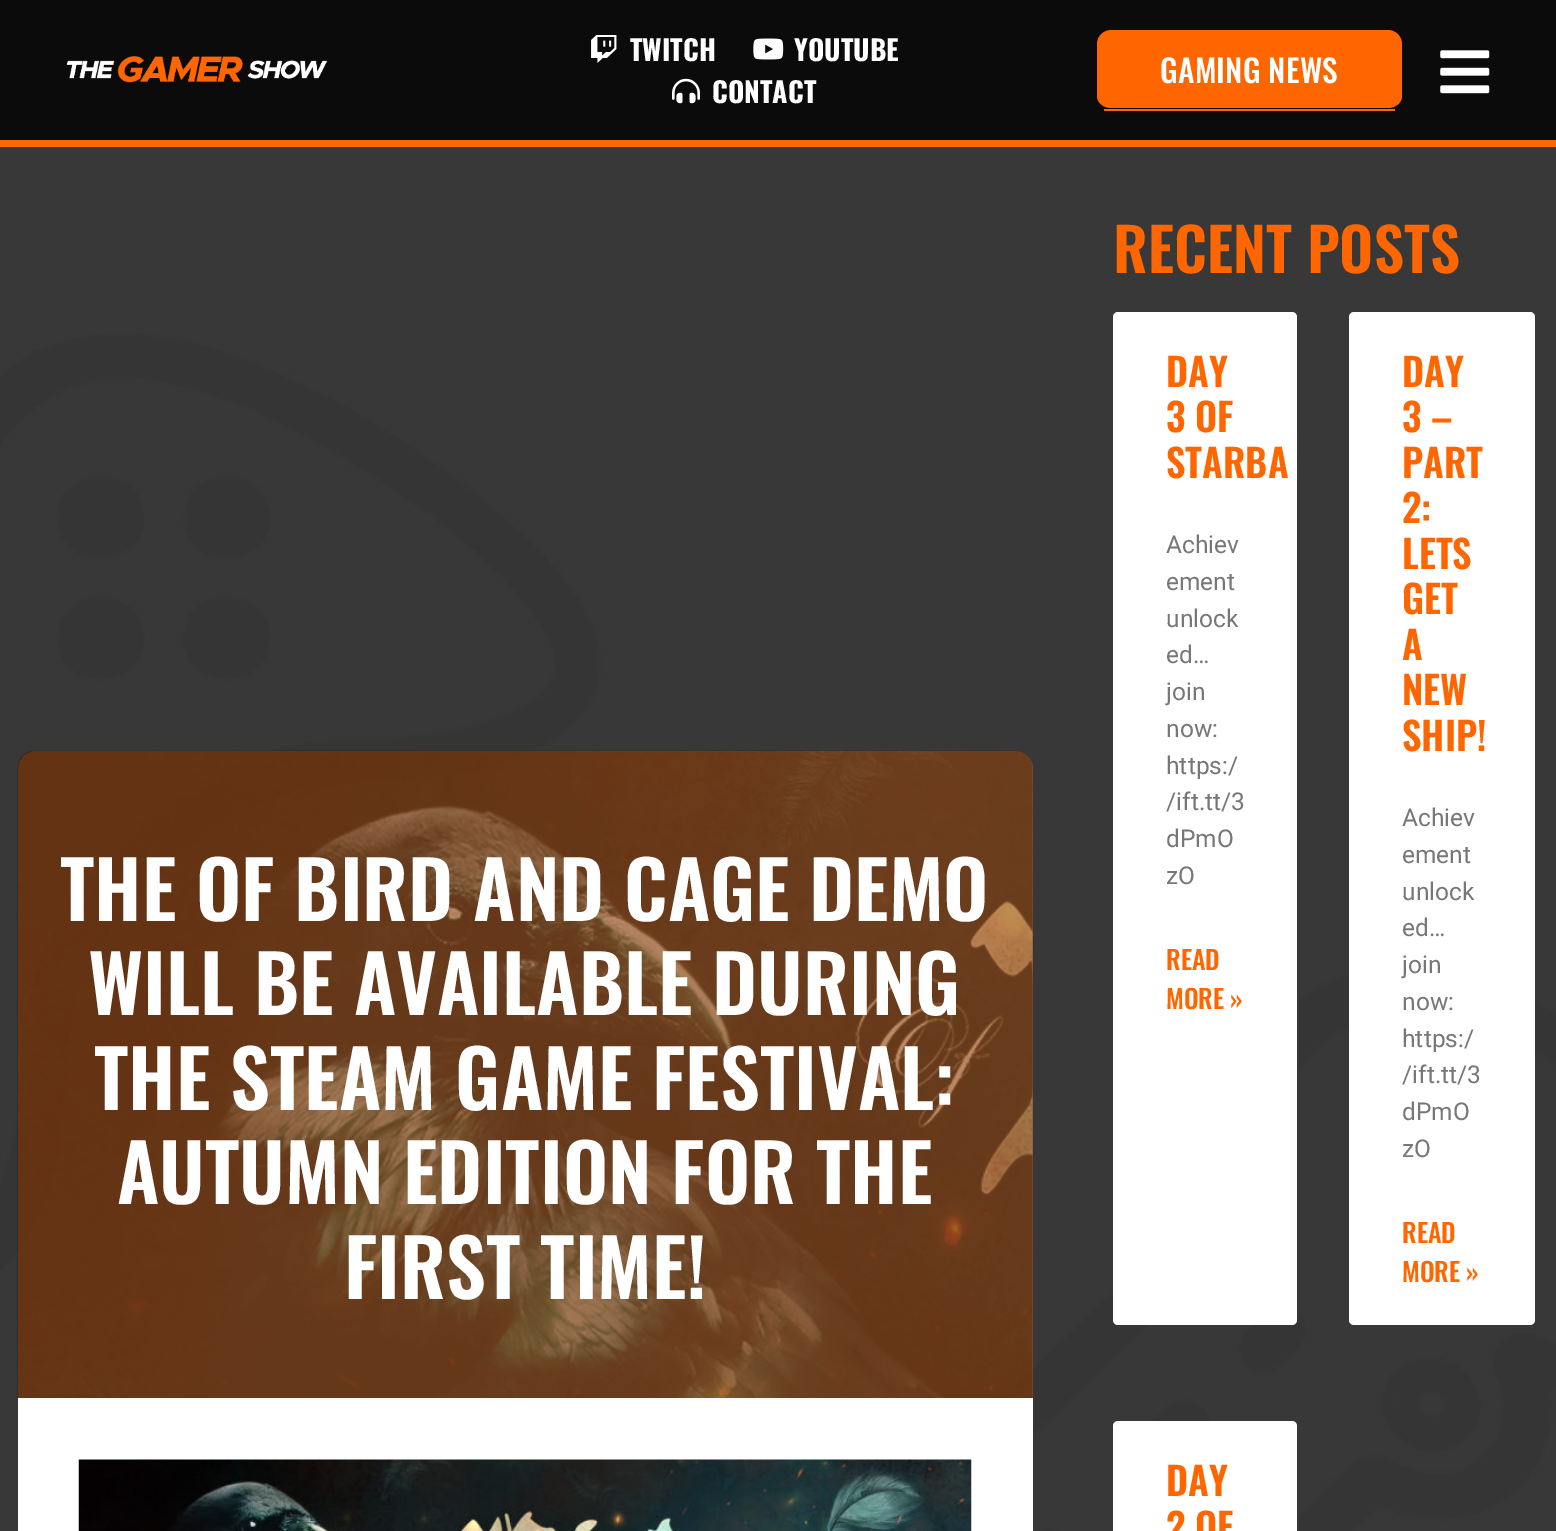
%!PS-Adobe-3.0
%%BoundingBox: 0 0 1556 1531
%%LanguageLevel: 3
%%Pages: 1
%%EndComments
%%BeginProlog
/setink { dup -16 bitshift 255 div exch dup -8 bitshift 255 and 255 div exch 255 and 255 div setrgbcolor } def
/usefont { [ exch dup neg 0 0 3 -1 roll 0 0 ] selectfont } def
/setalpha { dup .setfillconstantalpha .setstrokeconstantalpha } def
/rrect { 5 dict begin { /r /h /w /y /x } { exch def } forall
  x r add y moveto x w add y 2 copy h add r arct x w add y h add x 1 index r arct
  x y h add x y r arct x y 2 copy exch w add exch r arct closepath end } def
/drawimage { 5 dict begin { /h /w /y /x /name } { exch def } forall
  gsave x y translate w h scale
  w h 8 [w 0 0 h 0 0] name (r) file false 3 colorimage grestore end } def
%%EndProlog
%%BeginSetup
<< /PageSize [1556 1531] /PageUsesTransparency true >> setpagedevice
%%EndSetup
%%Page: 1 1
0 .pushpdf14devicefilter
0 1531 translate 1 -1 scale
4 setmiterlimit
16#FFFFFF setink
0 0 1556 1531 rectfill
16#0B0B0B setink
0 0 1556 140 rectfill
16#FF6600 setink
0 140 1556 7 rectfill
(img1.raw) 66 56 262 27 drawimage
(img2.raw) 591 35 26 28 drawimage
/Oswald-Bold 28 usefont
16#FFFFFF setink
630 61 moveto (TWITCH) show
(img3.raw) 753 38 31 22 drawimage
794 61 moveto (YOUTUBE) show
(img4.raw) 672 78 28 26 drawimage
712 103 moveto (CONTACT) show
16#FF6600 setink
1111 30 moveto 1388 30 lineto 1395 30 1402 36 1402 44 curveto 1402 96 lineto 1402 103 1395 108 1388 108 curveto 1111 108 lineto 1104 108 1097 103 1097 96 curveto 1097 44 lineto 1097 36 1104 30 1111 30 curveto closepath fill
1104 109 291 2 rectfill
/Oswald-Medium 31.5 usefont
16#FFFFFF setink
1160 83 moveto 0.25 0 (GAMING NEWS) ashow
(img5.raw) 1440 50 50 44 drawimage
(img6.raw) 0 147 1556 1384 drawimage
0.48 setalpha
16#FF6600 setink
36 751 moveto 1015 751 lineto 1025 751 1033 759 1033 769 curveto 1033 1398 lineto 18 1398 lineto 18 769 lineto 18 759 26 751 36 751 curveto closepath fill
1 setalpha
(img7.raw) 17 750 1016 649 drawimage
/Oswald-SemiBold 78.75 usefont
16#FFFFFF setink
[
    [(THE OF BIRD AND CAGE DEMO) 60 921]
    [(WILL BE AVAILABLE DURING) 88 1015]
    [(THE STEAM GAME FESTIVAL:) 94 1110]
    [(AUTUMN EDITION FOR THE) 117 1204]
    [(FIRST TIME!) 344 1299]
] { aload pop moveto show } forall
18 1398 1015 133 rectfill
(img8.raw) 78 1459 894 72 drawimage
/Oswald-SemiBold 59.5 usefont
16#FF6600 setink
1113 273 moveto (RECENT POSTS) show
16#FFFFFF setink
1113 312 184 1013 5 rrect fill
/Oswald-SemiBold 38.5 usefont
16#FF6600 setink
[
    [(DAY) 1166 387]
    [(3 OF) 1166 432]
    [(STARBA) 1166 478]
] { aload pop moveto show } forall
/Roboto-Regular 24.5 usefont
16#777777 setink
[
    [(Achiev) 1166 553]
    [(ement) 1166 590]
    [(unlock) 1166 627]
    [(ed…) 1166 663]
    [(join) 1166 700]
    [(now:) 1166 737]
    [(https:/) 1166 774]
    [(/ift.tt/3) 1166 810]
    [(dPmO) 1166 847]
    [(zO) 1166 884]
] { aload pop moveto show } forall
/Oswald-Medium 26 usefont
16#FF6600 setink
1166 970 moveto (READ) show
1166 1009 moveto (MORE ») show
16#FFFFFF setink
1349 312 186 1013 5 rrect fill
/Oswald-SemiBold 38.5 usefont
16#FF6600 setink
[
    [(DAY) 1402 387]
    [(3 –) 1402 432]
    [(PART) 1402 478]
    [(2:) 1402 523]
    [(LETS) 1402 569]
    [(GET) 1402 614]
    [(A) 1402 660]
    [(NEW) 1402 705]
    [(SHIP!) 1402 751]
] { aload pop moveto show } forall
/Roboto-Regular 24.5 usefont
16#777777 setink
[
    [(Achiev) 1402 826]
    [(ement) 1402 863]
    [(unlock) 1402 900]
    [(ed…) 1402 936]
    [(join) 1402 973]
    [(now:) 1402 1010]
    [(https:/) 1402 1047]
    [(/ift.tt/3) 1402 1083]
    [(dPmO) 1402 1120]
    [(zO) 1402 1157]
] { aload pop moveto show } forall
/Oswald-Medium 26 usefont
16#FF6600 setink
1402 1243 moveto (READ) show
1402 1282 moveto (MORE ») show
16#FFFFFF setink
1113 1421 184 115 5 rrect fill
/Oswald-SemiBold 38.5 usefont
16#FF6600 setink
1166 1496 moveto (DAY) show
1166 1542 moveto (2 OF) show
.poppdf14devicefilter showpage
%%EOF
